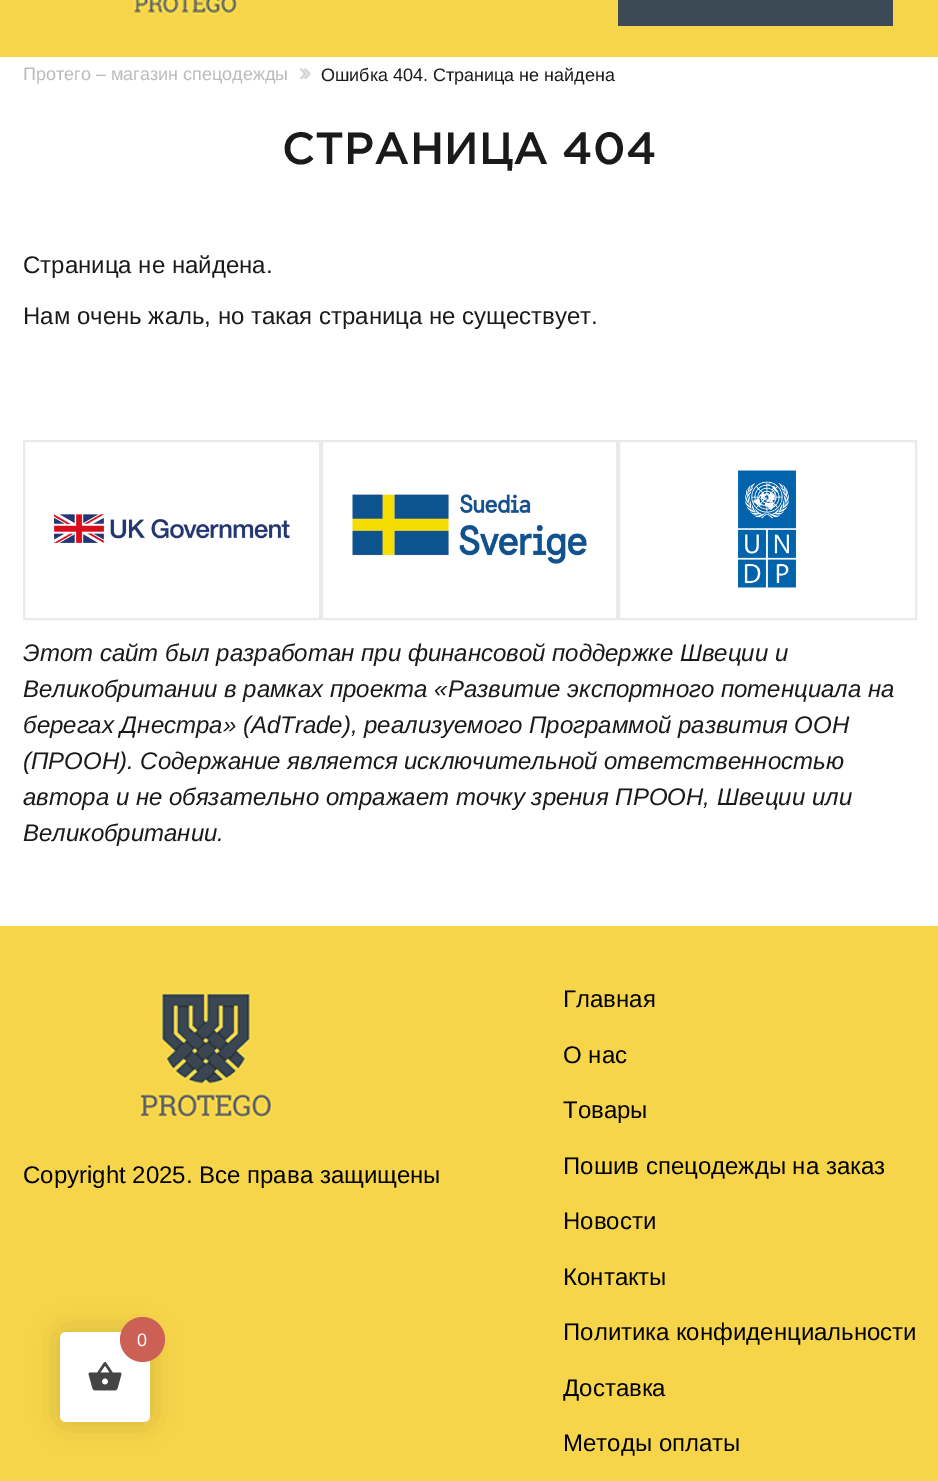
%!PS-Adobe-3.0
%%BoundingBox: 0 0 938 1481
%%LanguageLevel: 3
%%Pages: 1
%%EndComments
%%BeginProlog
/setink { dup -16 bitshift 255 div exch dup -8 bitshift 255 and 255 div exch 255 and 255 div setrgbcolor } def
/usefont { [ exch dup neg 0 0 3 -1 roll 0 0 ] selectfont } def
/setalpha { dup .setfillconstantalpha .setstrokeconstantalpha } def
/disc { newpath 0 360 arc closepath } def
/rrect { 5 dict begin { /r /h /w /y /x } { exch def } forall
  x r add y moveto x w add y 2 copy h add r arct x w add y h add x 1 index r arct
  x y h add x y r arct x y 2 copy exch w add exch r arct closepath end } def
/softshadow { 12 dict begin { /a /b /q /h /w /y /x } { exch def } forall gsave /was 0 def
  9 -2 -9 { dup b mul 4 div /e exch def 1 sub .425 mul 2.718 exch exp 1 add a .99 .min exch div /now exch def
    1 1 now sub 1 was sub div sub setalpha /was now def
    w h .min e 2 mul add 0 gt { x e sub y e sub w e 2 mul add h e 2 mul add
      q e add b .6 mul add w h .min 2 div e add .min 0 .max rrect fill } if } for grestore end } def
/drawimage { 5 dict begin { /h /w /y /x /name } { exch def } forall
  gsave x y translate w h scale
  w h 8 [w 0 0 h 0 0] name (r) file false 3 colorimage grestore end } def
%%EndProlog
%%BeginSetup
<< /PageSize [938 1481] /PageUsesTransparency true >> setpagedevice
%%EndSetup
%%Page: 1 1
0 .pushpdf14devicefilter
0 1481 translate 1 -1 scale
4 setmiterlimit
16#FFFFFF setink
0 0 938 1481 rectfill
16#F7D54A setink
0 0 938 57 rectfill
(img1.raw) 132 0 107 15 drawimage
16#3C4A55 setink
618 0 275 26 rectfill
/LiberationSans-Regular 18 usefont
16#BBBBBB setink
23 80 moveto (Протего – магазин спецодежды) show
(img2.raw) 300 68 11 11 drawimage
16#1A1A1A setink
321 81 moveto (Ошибка 404. Страница не найдена) show
/Gotham-Medium 45 usefont
282 164 moveto (СТРАНИЦА 404) show
/LiberationSans-Regular 24 usefont
23 273 moveto (Страница не найдена.) show
23 324 moveto (Нам очень жаль, но такая страница не существует.) show
16#EAEAEA setink
2 setlinewidth
24 441 296 178 rectstroke
(img3.raw) 54 514 236 29 drawimage
322 441 295 178 rectstroke
(img4.raw) 352 494 235 70 drawimage
619 441 297 178 rectstroke
(img5.raw) 738 470 58 118 drawimage
/LiberationSans-Italic 24 usefont
16#1A1A1A setink
[
    [(Этот сайт был разработан при финансовой поддержке Швеции и) 23 661]
    [(Великобритании в рамках проекта «Развитие экспортного потенциала на) 23 697]
    [(берегах Днестра» \(AdTrade\), реализуемого Программой развития ООН) 23 733]
    [(\(ПРООН\). Содержание является исключительной ответственностью) 23 769]
    [(автора и не обязательно отражает точку зрения ПРООН, Швеции или) 23 805]
    [(Великобритании.) 23 841]
] { aload pop moveto show } forall
16#F7D54A setink
0 926 938 555 rectfill
(img6.raw) 139 992 133 126 drawimage
/LiberationSans-Regular 24 usefont
16#000000 setink
[
    [(Copyright 2025. Все права защищены) 23 1183]
    [(Главная) 563 1007]
    [(О нас) 563 1063]
    [(Товары) 563 1118]
    [(Пошив cпецодежды на заказ) 563 1174]
    [(Новости) 563 1229]
    [(Контакты) 563 1285]
    [(Политика конфиденциальности) 563 1340]
    [(Доставка) 563 1396]
    [(Методы оплаты) 563 1451]
] { aload pop moveto show } forall
60 1332 90 90 6 15 0.15 softshadow
16#FFFFFF setink
60 1332 90 90 6 rrect fill
16#CC6055 setink
142.5 1339.5 22.5 disc fill
/LiberationSans-Regular 18 usefont
16#FFFFFF setink
137 1346 moveto (0) show
(img7.raw) 88 1362 34 29 drawimage
.poppdf14devicefilter showpage
%%EOF
